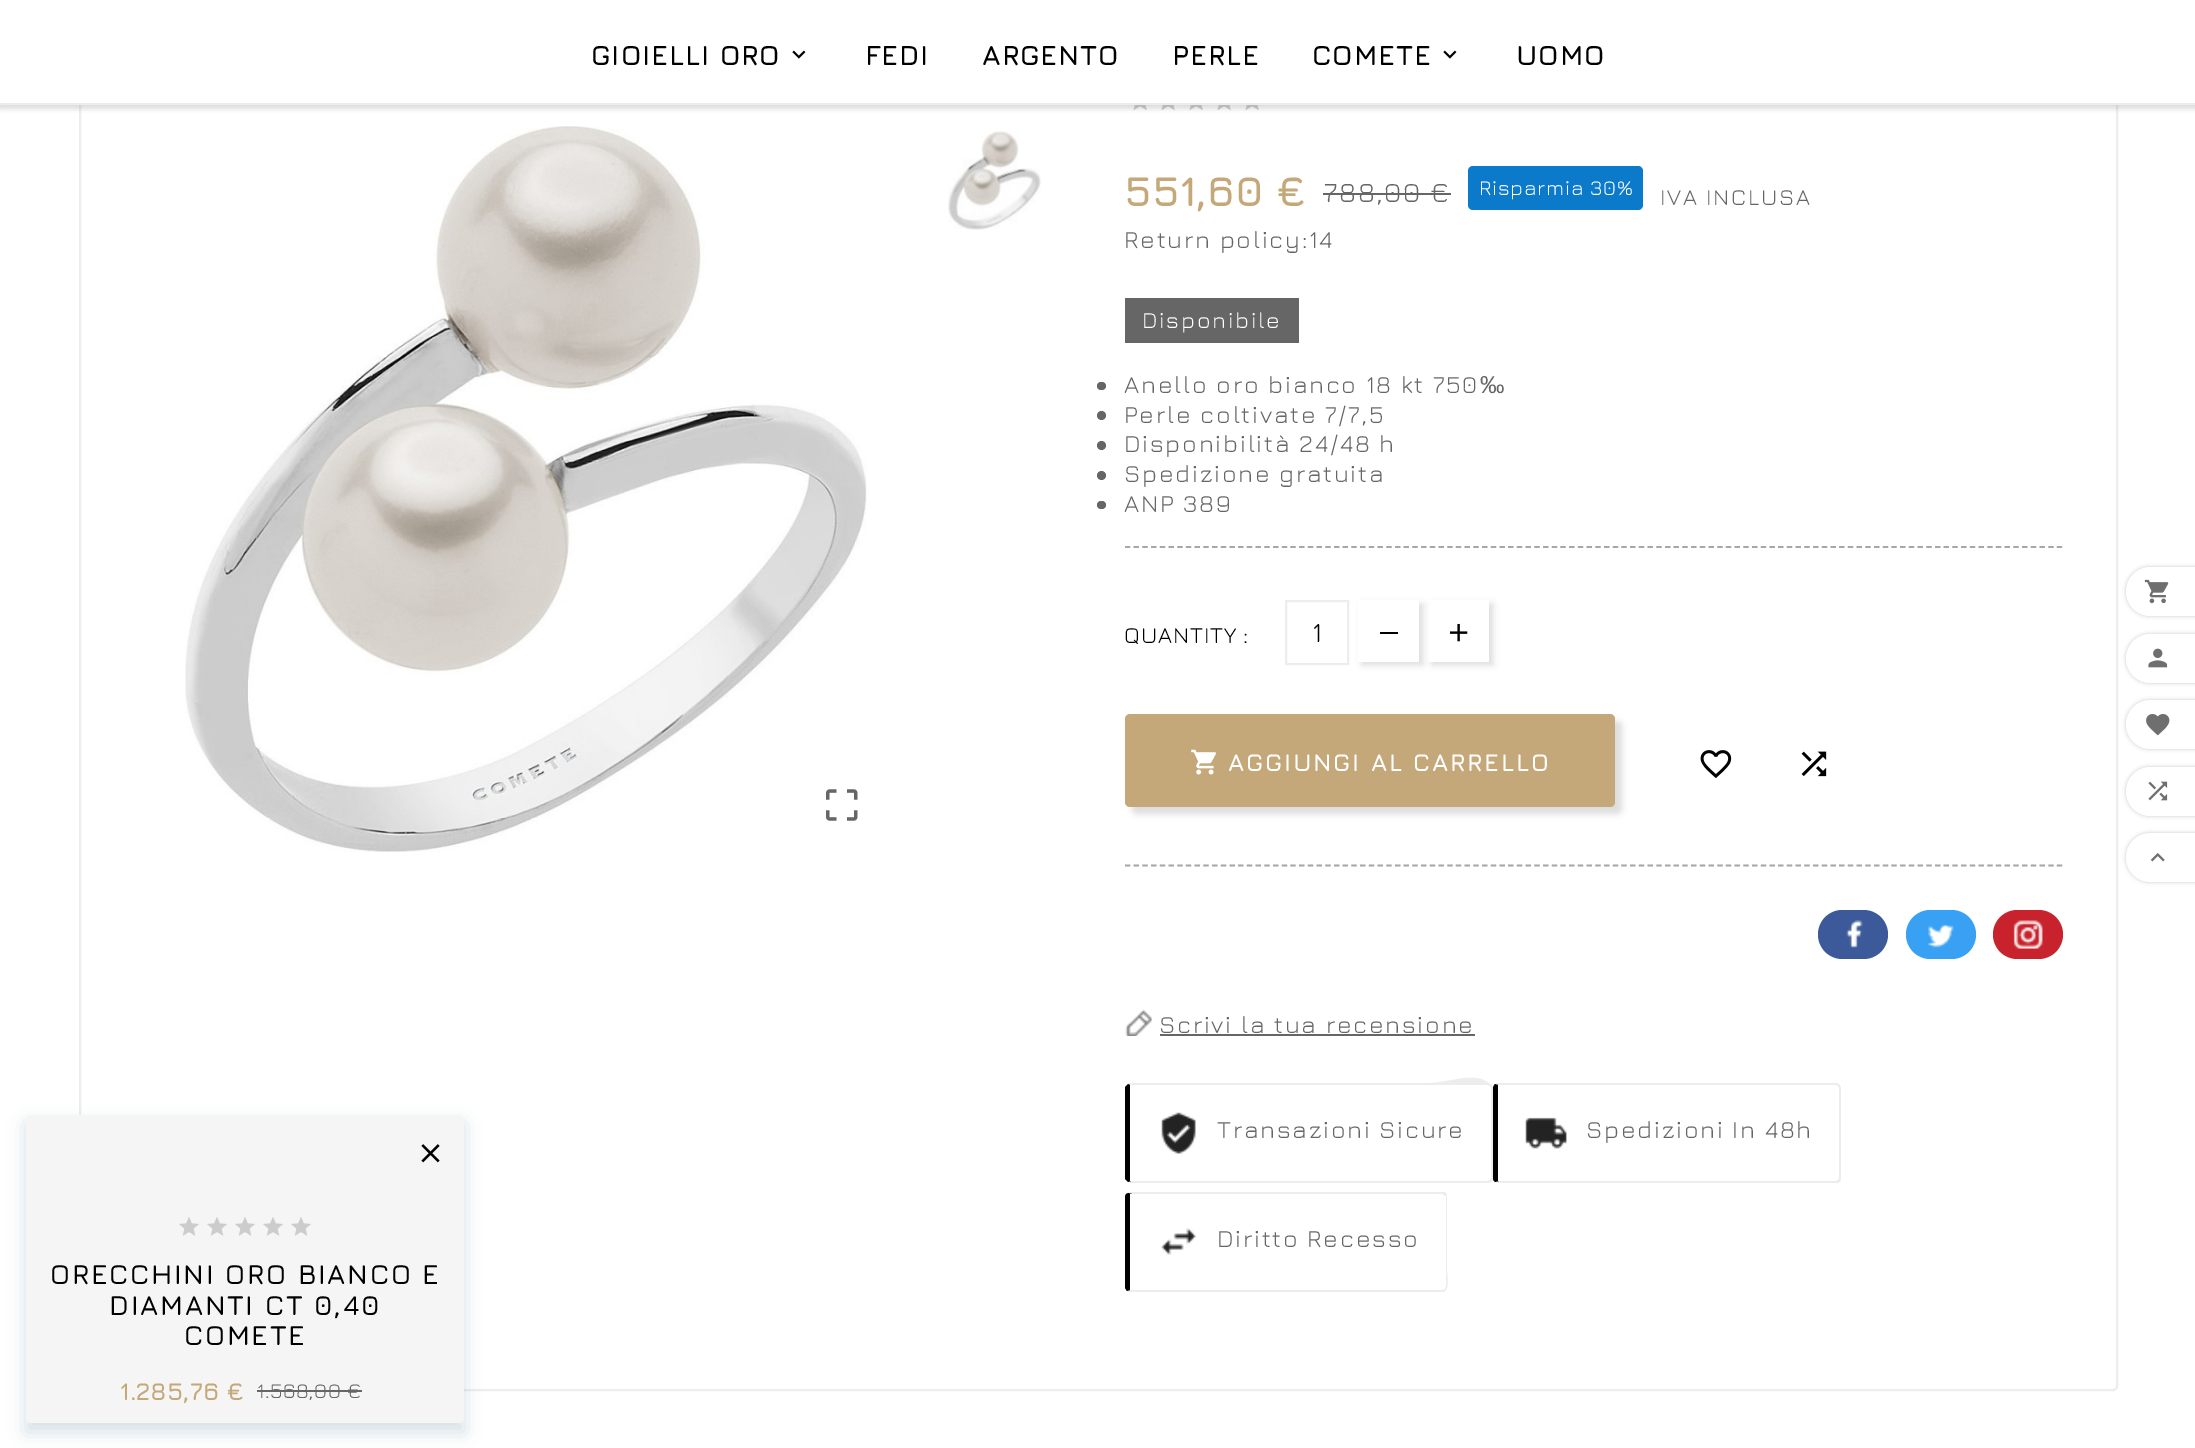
%!PS-Adobe-3.0
%%BoundingBox: 0 0 2195 1448
%%LanguageLevel: 3
%%Pages: 1
%%EndComments
%%BeginProlog
/setink { dup -16 bitshift 255 div exch dup -8 bitshift 255 and 255 div exch 255 and 255 div setrgbcolor } def
/usefont { [ exch dup neg 0 0 3 -1 roll 0 0 ] selectfont } def
/setalpha { dup .setfillconstantalpha .setstrokeconstantalpha } def
/disc { newpath 0 360 arc closepath } def
/rrect { 5 dict begin { /r /h /w /y /x } { exch def } forall
  x r add y moveto x w add y 2 copy h add r arct x w add y h add x 1 index r arct
  x y h add x y r arct x y 2 copy exch w add exch r arct closepath end } def
/softshadow { 12 dict begin { /a /b /q /h /w /y /x } { exch def } forall gsave /was 0 def
  9 -2 -9 { dup b mul 4 div /e exch def 1 sub .425 mul 2.718 exch exp 1 add a .99 .min exch div /now exch def
    1 1 now sub 1 was sub div sub setalpha /was now def
    w h .min e 2 mul add 0 gt { x e sub y e sub w e 2 mul add h e 2 mul add
      q e add b .6 mul add w h .min 2 div e add .min 0 .max rrect fill } if } for grestore end } def
/drawimage { 5 dict begin { /h /w /y /x /name } { exch def } forall
  gsave x y translate w h scale
  w h 8 [w 0 0 h 0 0] name (r) file false 3 colorimage grestore end } def
%%EndProlog
%%BeginSetup
<< /PageSize [2195 1448] /PageUsesTransparency true >> setpagedevice
%%EndSetup
%%Page: 1 1
0 .pushpdf14devicefilter
0 1448 translate 1 -1 scale
4 setmiterlimit
16#FFFFFF setink
0 0 2195 1448 rectfill
16#EDEDED setink
2 setlinewidth
80 -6 2037 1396 4 rrect stroke
(img5.raw) 1133 105 14 6 drawimage
(img5.raw) 1161 105 14 6 drawimage
(img5.raw) 1189 105 14 6 drawimage
(img5.raw) 1217 105 14 6 drawimage
(img5.raw) 1245 105 14 6 drawimage
16#808080 setink
-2 0 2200 109 0 2.5 0.27 softshadow
16#FFFFFF setink
0 0 2195 103 rectfill
16#EDEDED setink
0 103 2195 2 rectfill
/Jura-Bold 28 usefont
16#000000 setink
591 65 moveto 0.9 0 (GIOIELLI ORO) ashow
(img1.raw) 792 50 14 9 drawimage
865 65 moveto 0.9 0 (FEDI) ashow
982 65 moveto 0.9 0 (ARGENTO) ashow
1172 65 moveto 0.9 0 (PERLE) ashow
1312 65 moveto 0.9 0 (COMETE) ashow
(img1.raw) 1443 50 14 9 drawimage
1516 65 moveto 0.9 0 (UOMO) ashow
(img2.raw) 185 126 682 726 drawimage
(img3.raw) 826 789 32 32 drawimage
(img4.raw) 948 131 93 99 drawimage
/Jura-Bold 42 usefont
16#C4A87A setink
1124 206 moveto (551,60 €) show
/Jura-Regular 28 usefont
16#666666 setink
1324 202 moveto 1.75 0 (788,00 €) ashow
1323 193 128 2 rectfill
16#0B7ACB setink
1468 166 175 44 5 rrect fill
/Jura-Regular 21 usefont
16#FFFFFF setink
1479 195 moveto 0.75 0 (Risparmia 30%) ashow
/Jura-Regular 22.75 usefont
16#666666 setink
1660 205 moveto 1.75 0 (IVA INCLUSA) ashow
/Jura-Regular 24.5 usefont
1124 248 moveto 1.75 0 (Return policy:14) ashow
1125 298 174 45 rectfill
/Jura-Regular 22.75 usefont
16#FFFFFF setink
1142 328 moveto 1.75 0 (Disponibile) ashow
16#666666 setink
1097 382 9 8 4 rrect fill
/Jura-Regular 24.5 usefont
1124 393 moveto 1.75 0 (Anello oro bianco 18 kt 750) ashow
/LiberationSans-Regular 24.5 usefont
1480 393 moveto 1.75 0 (‰) ashow
1101.5 415.5 4.5 disc fill
/Jura-Regular 24.5 usefont
1124 423 moveto 1.75 0 (Perle coltivate 7/7,5) ashow
1101.5 445.5 4.5 disc fill
1124 452 moveto 1.75 0 (Disponibilità 24/48 h) ashow
1101.5 475.5 4.5 disc fill
1124 482 moveto 1.75 0 (Spedizione gratuita) ashow
1097 501 9 8 4 rrect fill
1124 512 moveto 1.75 0 (ANP 389) ashow
16#A7A7A7 setink
1.8 setlinewidth
[5.25 3.46] 0 setdash
1125 547 moveto 2063 547 lineto stroke
/Jura-Regular 22.75 usefont
16#000000 setink
1124 643 moveto 0.9 0 (QUANTITY :) ashow
16#EDEDED setink
2 setlinewidth
[] 0 setdash
1286 601 62 63 rectstroke
/Jura-Regular 28 usefont
16#000000 setink
1312 642 moveto (1) show
1432 604 61 61 0 3.5 0.14 softshadow
16#FFFFFF setink
1428 600 61 62 rectfill
16#000000 setink
1362 604 61 61 0 3.5 0.14 softshadow
16#FFFFFF setink
1358 600 61 62 rectfill
16#000000 setink
1380 632 18 2 rectfill
(img6.raw) 1449 623 19 19 drawimage
16#A7A7A7 setink
1.8 setlinewidth
[5.25 3.46] 0 setdash
1125 865.5 moveto 2063 865.5 lineto stroke
(img7.raw) 1700 750 32 29 drawimage
(img8.raw) 1801 751 26 26 drawimage
16#000000 setink
1132 721 490 93 5 3.5 0.14 softshadow
16#C4A87A setink
1125 714 490 93 5 rrect fill
(img9.raw) 1191 749 25 26 drawimage
/Jura-Bold 24.5 usefont
16#FFFFFF setink
1228 771 moveto 1.75 0 (AGGIUNGI AL CARRELLO) ashow
16#3C5A99 setink
1818 910 70 49 24.5 rrect fill
(img10.raw) 1846 920 17 28 drawimage
16#38A1F3 setink
1906 910 70 49 24.5 rrect fill
(img11.raw) 1928 924 26 24 drawimage
16#C8232C setink
1993 910 70 49 24.5 rrect fill
(img12.raw) 2013 920 30 29 drawimage
(img13.raw) 1125 1009 27 27 drawimage
/Jura-Regular 24.5 usefont
16#666666 setink
1159 1033 moveto 1.75 0 (Scrivi la tua recensione) ashow
1160 1034 315 2 rectfill
16#EDEDED setink
1128 1084 moveto 1129 1083 lineto 1429 1083 lineto 1450 1083 1476 1070 1491 1085 curveto 1490 1086 lineto 1488 1085 lineto 1130 1085 lineto closepath fill
0.07 setalpha
16#000000 setink
1493 1179 moveto 1491 1182 lineto 1490 1180 lineto 1491 1178 lineto 1491 1088 lineto 1490 1086 lineto 1491 1085 lineto 1493 1087 lineto closepath fill
1130 1183 moveto 1488 1183 lineto 1489 1183 1490 1182 1491 1182 curveto 1490 1180 lineto 1488 1181 lineto 1131 1181 lineto 1128 1182 lineto closepath fill
1 setalpha
1130 1085 moveto 1130 1181 lineto 1131 1181 lineto 1128 1182 lineto 1125 1179 lineto 1125 1087 lineto 1128 1084 lineto closepath fill
(img14.raw) 1161 1112 35 42 drawimage
16#666666 setink
1217 1138 moveto 1.75 0 (Transazioni Sicure) ashow
16#EDEDED setink
1498 1085 moveto 1495 1084 lineto 1497 1083 lineto 1837 1083 lineto 1840 1085 lineto 1838 1086 lineto 1836 1085 lineto closepath fill
0.07 setalpha
16#000000 setink
1841 1178 moveto 1841 1088 lineto 1840 1085 lineto 1838 1086 lineto 1839 1088 lineto 1839 1178 lineto 1838 1180 lineto 1840 1182 lineto 1840 1181 1841 1180 1841 1178 curveto closepath fill
1498 1183 moveto 1836 1183 lineto 1838 1183 1839 1182 1840 1182 curveto 1838 1180 lineto 1836 1181 lineto 1499 1181 lineto 1495 1182 lineto closepath fill
1 setalpha
1498 1085 moveto 1498 1181 lineto 1499 1181 lineto 1495 1182 lineto 1494 1181 1493 1180 1493 1178 curveto 1493 1088 lineto 1493 1087 1494 1085 1495 1084 curveto closepath fill
(img15.raw) 1525 1117 42 32 drawimage
16#666666 setink
1586 1138 moveto 1.75 0 (Spedizioni In 48h) ashow
16#EDEDED setink
1130 1192 moveto 1128 1193 lineto 1132 1194 lineto 1442 1194 lineto 1444 1195 lineto 1446 1193 lineto 1445 1192 1444 1192 1442 1192 curveto closepath fill
0.07 setalpha
16#000000 setink
1446 1193 moveto 1447 1196 lineto 1447 1271 lineto 1447 1272 1449 1286 1446 1290 curveto 1445 1289 lineto 1446 1286 lineto 1446 1196 lineto 1444 1195 lineto closepath fill
1128 1292 moveto 1127 1291 lineto 1130 1290 lineto 1442 1290 lineto 1443 1290 1444 1290 1445 1289 curveto 1446 1290 lineto 1444 1292 lineto closepath fill
1 setalpha
1130 1194 moveto 1130 1290 lineto 1127 1291 lineto 1125 1288 lineto 1125 1196 lineto 1126 1194 lineto 1128 1193 lineto 1132 1194 lineto closepath fill
(img16.raw) 1161 1228 35 27 drawimage
16#666666 setink
1217 1247 moveto 1.75 0 (Diritto Recesso) ashow
16#000000 setink
2126 567 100 49 24.5 2 0.2 softshadow
16#FFFFFF setink
2150.5 567 moveto 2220 567 lineto 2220 616 lineto 2150.5 616 lineto 2137 616 2126 605 2126 591.5 curveto 2126 578 2137 567 2150.5 567 curveto closepath fill
(img17.raw) 2144 579 25 25 drawimage
16#000000 setink
2126 634 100 49 24.5 2 0.2 softshadow
16#FFFFFF setink
2150.5 634 moveto 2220 634 lineto 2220 683 lineto 2150.5 683 lineto 2137 683 2126 672 2126 658.5 curveto 2126 645 2137 634 2150.5 634 curveto closepath fill
(img18.raw) 2148 648 20 20 drawimage
16#000000 setink
2126 700 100 49 24.5 2 0.2 softshadow
16#FFFFFF setink
2150.5 700 moveto 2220 700 lineto 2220 749 lineto 2150.5 749 lineto 2137 749 2126 738 2126 724.5 curveto 2126 711 2137 700 2150.5 700 curveto closepath fill
(img19.raw) 2146 714 24 22 drawimage
16#000000 setink
2126 767 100 49 24.5 2 0.2 softshadow
16#FFFFFF setink
2150.5 767 moveto 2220 767 lineto 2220 816 lineto 2150.5 816 lineto 2137 816 2126 805 2126 791.5 curveto 2126 778 2137 767 2150.5 767 curveto closepath fill
(img20.raw) 2148 781 20 20 drawimage
16#000000 setink
2126 833 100 49 24.5 2 0.2 softshadow
16#FFFFFF setink
2150.5 833 moveto 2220 833 lineto 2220 882 lineto 2150.5 882 lineto 2137 882 2126 871 2126 857.5 curveto 2126 844 2137 833 2150.5 833 curveto closepath fill
(img21.raw) 2150 853 15 9 drawimage
16#175474 setink
26 1124 438 308 0 9 0.18 softshadow
16#F5F5F5 setink
26 1115 438 308 5 rrect fill
(img22.raw) 421 1144 19 19 drawimage
(img23.raw) 179 1217 20 19 drawimage
(img23.raw) 207 1217 20 19 drawimage
(img23.raw) 235 1217 20 19 drawimage
(img23.raw) 263 1217 20 19 drawimage
(img23.raw) 291 1217 20 19 drawimage
/Jura-SemiBold 28 usefont
16#000000 setink
50 1284 moveto 1.75 0 (ORECCHINI ORO BIANCO E) ashow
109 1315 moveto 1.75 0 (DIAMANTI CT 0,40) ashow
184 1345 moveto 1.75 0 (COMETE) ashow
/Jura-Bold 24.5 usefont
16#C4A87A setink
120 1400 moveto (1.285,76 €) show
/Jura-Regular 21 usefont
16#666666 setink
257 1398 moveto 0.5 0 (1.568,00 €) ashow
257 1390 105 2 rectfill
.poppdf14devicefilter showpage
%%EOF
